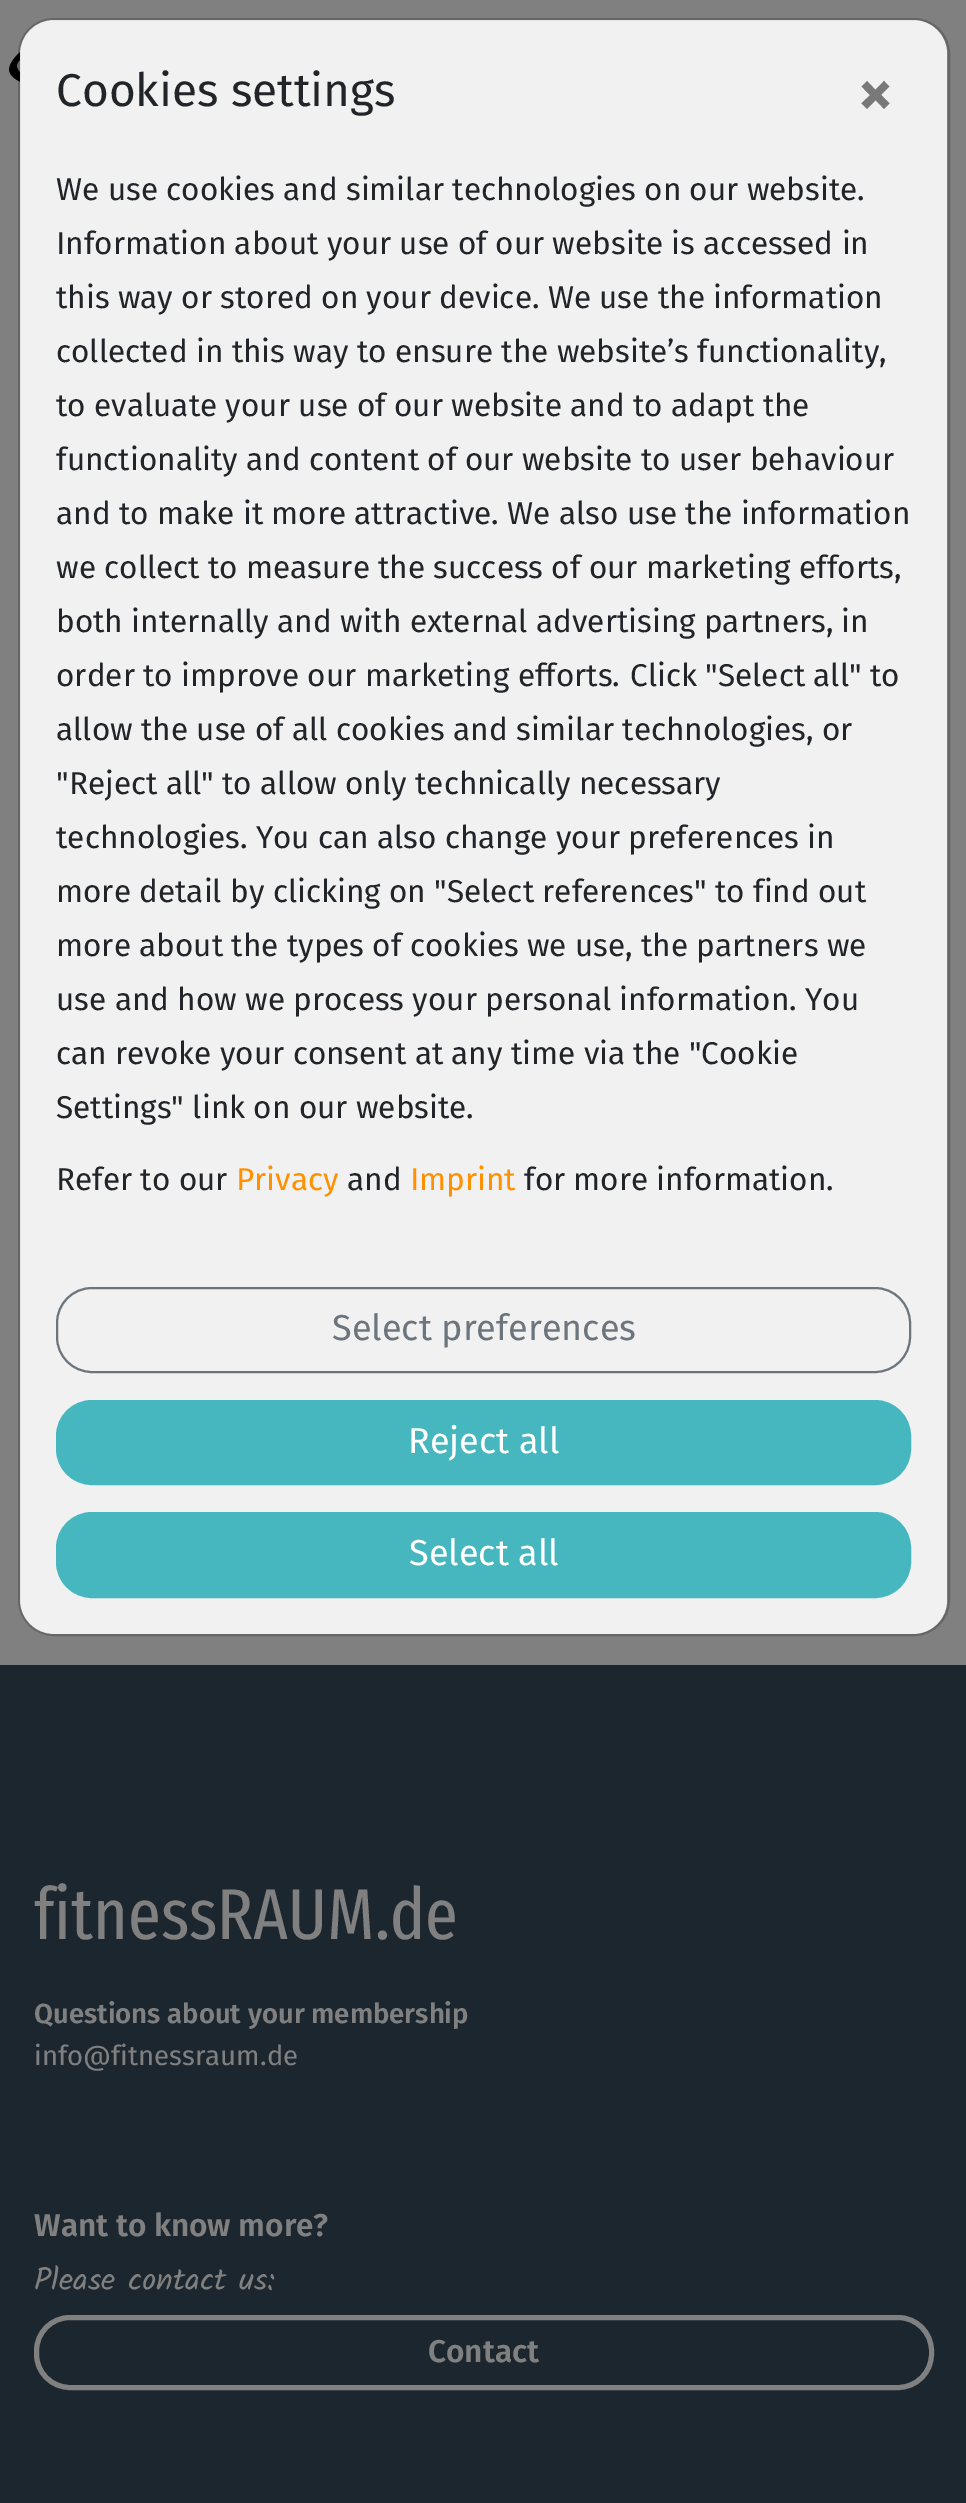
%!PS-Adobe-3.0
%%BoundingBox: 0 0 966 2503
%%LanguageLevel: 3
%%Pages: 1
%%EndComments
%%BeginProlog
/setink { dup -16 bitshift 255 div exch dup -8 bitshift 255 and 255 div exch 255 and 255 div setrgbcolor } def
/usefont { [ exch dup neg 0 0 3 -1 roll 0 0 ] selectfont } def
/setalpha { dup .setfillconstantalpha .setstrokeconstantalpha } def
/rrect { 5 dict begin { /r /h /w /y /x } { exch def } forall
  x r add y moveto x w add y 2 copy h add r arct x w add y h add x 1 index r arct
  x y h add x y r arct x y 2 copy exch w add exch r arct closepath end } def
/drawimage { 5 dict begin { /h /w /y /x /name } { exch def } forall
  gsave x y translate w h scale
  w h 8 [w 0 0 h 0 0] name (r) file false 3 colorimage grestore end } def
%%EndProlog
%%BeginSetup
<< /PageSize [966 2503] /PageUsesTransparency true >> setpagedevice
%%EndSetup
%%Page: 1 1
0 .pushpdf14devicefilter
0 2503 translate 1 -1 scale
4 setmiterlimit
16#808080 setink
0 0 966 2503 rectfill
(img1.raw) 9 51 12 31 drawimage
16#F1F1F1 setink
20 20 927 1614 34 rrect fill
0.2 setalpha
16#000000 setink
2 setlinewidth
19 19 930 1616 35 rrect stroke
/FiraSans-Regular 46 usefont
1 setalpha
16#212529 setink
56 106 moveto (Cookies settings) show
/FiraSans-SemiBold 72 usefont
16#797979 setink
857 117 moveto (×) show
/FiraSans-Regular 31.5 usefont
16#212529 setink
[
    [(We use cookies and similar technologies on our website.) 56 200]
    [(Information about your use of our website is accessed in) 56 254]
    [(this way or stored on your device. We use the information) 56 308]
    [(collected in this way to ensure the website’s functionality,) 56 362]
    [(to evaluate your use of our website and to adapt the) 56 416]
    [(functionality and content of our website to user behaviour) 56 470]
    [(and to make it more attractive. We also use the information) 56 524]
    [(we collect to measure the success of our marketing efforts,) 56 578]
    [(both internally and with external advertising partners, in) 56 632]
    [(order to improve our marketing efforts.) 56 686]
    [(Click "Select all" to) 630 686]
    [(allow the use of all cookies and similar technologies, or) 56 740]
    [("Reject all" to allow only technically necessary) 56 794]
    [(technologies. You can also change your preferences in) 56 848]
    [(more detail by clicking on "Select references" to find out) 56 902]
    [(more about the types of cookies we use, the partners we) 56 956]
    [(use and how we process your personal information. You) 56 1010]
    [(can revoke your consent at any time via the "Cookie) 56 1064]
    [(Settings" link on our website.) 56 1118]
    [(Refer to our) 56 1190]
] { aload pop moveto show } forall
16#FF9100 setink
236 1190 moveto (Privacy) show
16#212529 setink
347 1190 moveto (and) show
16#FF9100 setink
410 1190 moveto (Imprint) show
16#212529 setink
524 1190 moveto (for more information.) show
16#6C757D setink
57 1288 853 84 35 rrect stroke
/FiraSans-Regular 36 usefont
332 1340 moveto (Select preferences) show
16#46B6BF setink
57 1401 853 83 35 rrect gsave fill grestore
stroke
16#FFFFFF setink
408 1453 moveto (Reject all) show
16#46B6BF setink
57 1513 853 84 35 rrect gsave fill grestore
stroke
16#FFFFFF setink
409 1565 moveto (Select all) show
16#1B262E setink
0 1665 966 838 rectfill
/FiraSansExtraCondensed-Regular 72 usefont
16#808080 setink
34 1939 moveto (fitnessRAUM.de) show
/FiraSans-SemiBold 27.5 usefont
34 2023 moveto (Questions about your membership) show
/FiraSans-Regular 27.5 usefont
34 2065 moveto (info@fitnessraum.de) show
/FiraSans-SemiBold 31.5 usefont
34 2236 moveto (Want to know more?) show
/Kalam-Regular 31.5 usefont
34 2290 moveto (Please contact us:) show
5 setlinewidth
36.5 2317.5 895 70 33.5 rrect stroke
/FiraSans-SemiBold 31.5 usefont
428 2362 moveto (Contact) show
.poppdf14devicefilter showpage
%%EOF
